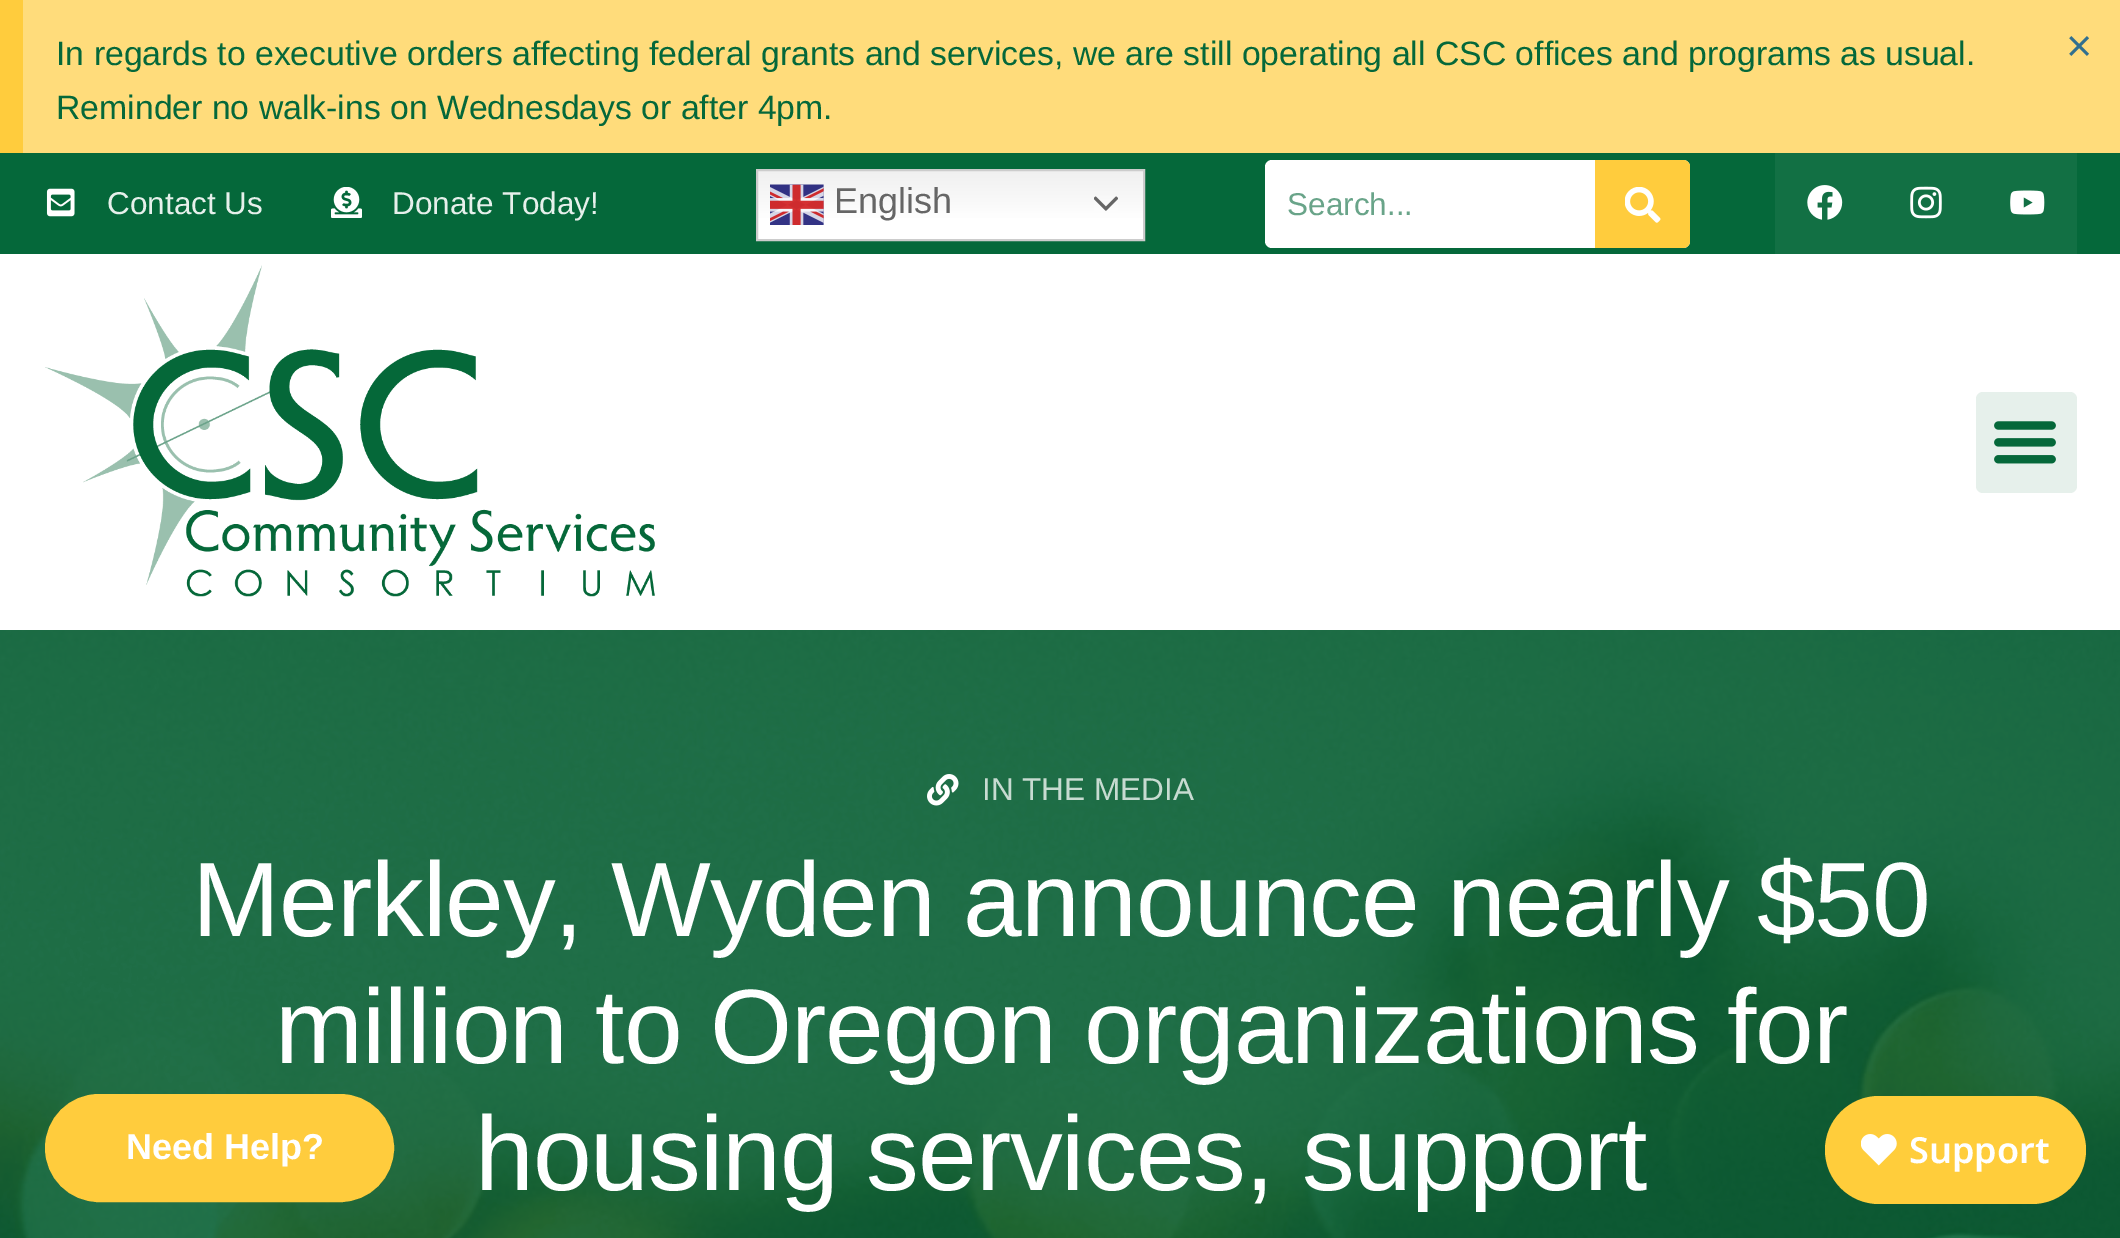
%!PS-Adobe-3.0
%%BoundingBox: 0 0 2120 1238
%%LanguageLevel: 3
%%Pages: 1
%%EndComments
%%BeginProlog
/setink { dup -16 bitshift 255 div exch dup -8 bitshift 255 and 255 div exch 255 and 255 div setrgbcolor } def
/usefont { [ exch dup neg 0 0 3 -1 roll 0 0 ] selectfont } def
/rrect { 5 dict begin { /r /h /w /y /x } { exch def } forall
  x r add y moveto x w add y 2 copy h add r arct x w add y h add x 1 index r arct
  x y h add x y r arct x y 2 copy exch w add exch r arct closepath end } def
/drawimage { 5 dict begin { /h /w /y /x /name } { exch def } forall
  gsave x y translate w h scale
  w h 8 [w 0 0 h 0 0] name (r) file false 3 colorimage grestore end } def
%%EndProlog
%%BeginSetup
<< /PageSize [2120 1238] >> setpagedevice
%%EndSetup
%%Page: 1 1
0 1238 translate 1 -1 scale
4 setmiterlimit
16#FFFFFF setink
0 0 2120 1238 rectfill
16#FFDC7B setink
23 0 2097 153 rectfill
16#FFCC3D setink
0 0 23 153 rectfill
/LiberationSans-Regular 33.75 usefont
16#05683A setink
56 65 moveto (In regards to executive orders affecting federal grants and services, we are still operating all CSC offices and programs as usual.) show
/LiberationSans-Regular 45 usefont
16#31708F setink
2066 61 moveto (×) show
/LiberationSans-Regular 33.75 usefont
16#05683A setink
56 119 moveto (Reminder no walk-ins on Wednesdays or after 4pm.) show
0 153 2120 101 rectfill
(img1.raw) 46 188 29 29 drawimage
/LiberationSans-Regular 31.5 usefont
16#E6F0EB setink
107 214 moveto (Contact Us) show
(img2.raw) 331 187 31 31 drawimage
392 214 moveto (Donate Today!) show
gsave 758 171 moveto 1143 171 lineto 1143 239 lineto 758 239 lineto closepath clip newpath
<< /ShadingType 2 /ColorSpace /DeviceRGB /Coords [951 169 951 241] /Extend [true true] /Function << /FunctionType 3 /Domain [0 1] /Functions [<< /FunctionType 2 /Domain [0 1] /C0 [0.937 0.937 0.937] /C1 [1 1 1] /N 1 >> << /FunctionType 2 /Domain [0 1] /C0 [1 1 1] /C1 [1 1 1] /N 1 >>] /Bounds [0.7] /Encode [0 1 0 1] >> >> shfill grestore
16#CCCCCC setink
2 setlinewidth
757 170 387 70 rectstroke
(img3.raw) 770 184 54 41 drawimage
/LiberationSans-Regular 36 usefont
16#666666 setink
834 213 moveto (English) show
(img4.raw) 1094 196 24 15 drawimage
16#FFFFFF setink
1265 160 425 88 7 rrect fill
/LiberationSans-Regular 31.5 usefont
16#69A489 setink
1287 215 moveto (Search...) show
16#FFCC3D setink
1595 160 moveto 1683 160 lineto 1687 160 1690 163 1690 167 curveto 1690 241 lineto 1690 245 1687 248 1683 248 curveto 1595 248 lineto closepath fill
(img5.raw) 1625 187 36 36 drawimage
16#127044 setink
1775 153 302 101 rectfill
(img6.raw) 1807 185 36 35 drawimage
(img7.raw) 1910 186 32 33 drawimage
(img8.raw) 2010 190 35 25 drawimage
(img9.raw) 45 265 610 332 drawimage
16#E6F0EB setink
1976 392 101 101 7 rrect fill
(img10.raw) 1994 421 62 43 drawimage
16#096136 setink
0 630 2120 608 rectfill
(img11.raw) 0 630 2120 608 drawimage
(img12.raw) 927 774 32 32 drawimage
16#C7DBD1 setink
982 800 moveto (IN THE MEDIA) show
/LiberationSans-Regular 105.75 usefont
16#FFFFFF setink
192 936 moveto -1.1 0 (Merkley, Wyden announce nearly $50) ashow
275 1063 moveto -1.1 0 (million to Oregon organizations for) ashow
475 1190 moveto -1.1 0 (housing services, support) ashow
16#FFCC3D setink
46 1095 347 106 53 rrect gsave fill grestore
stroke
/LiberationSans-Bold 36 usefont
16#FFFFFF setink
126 1159 moveto (Need Help?) show
16#FFCD3B setink
1825 1096 261 108 54 rrect fill
(img13.raw) 1861 1134 36 32 drawimage
/NotoSans-SemiBold 36 usefont
16#FFFFFF setink
1909 1163 moveto (Support) show
showpage
%%EOF
